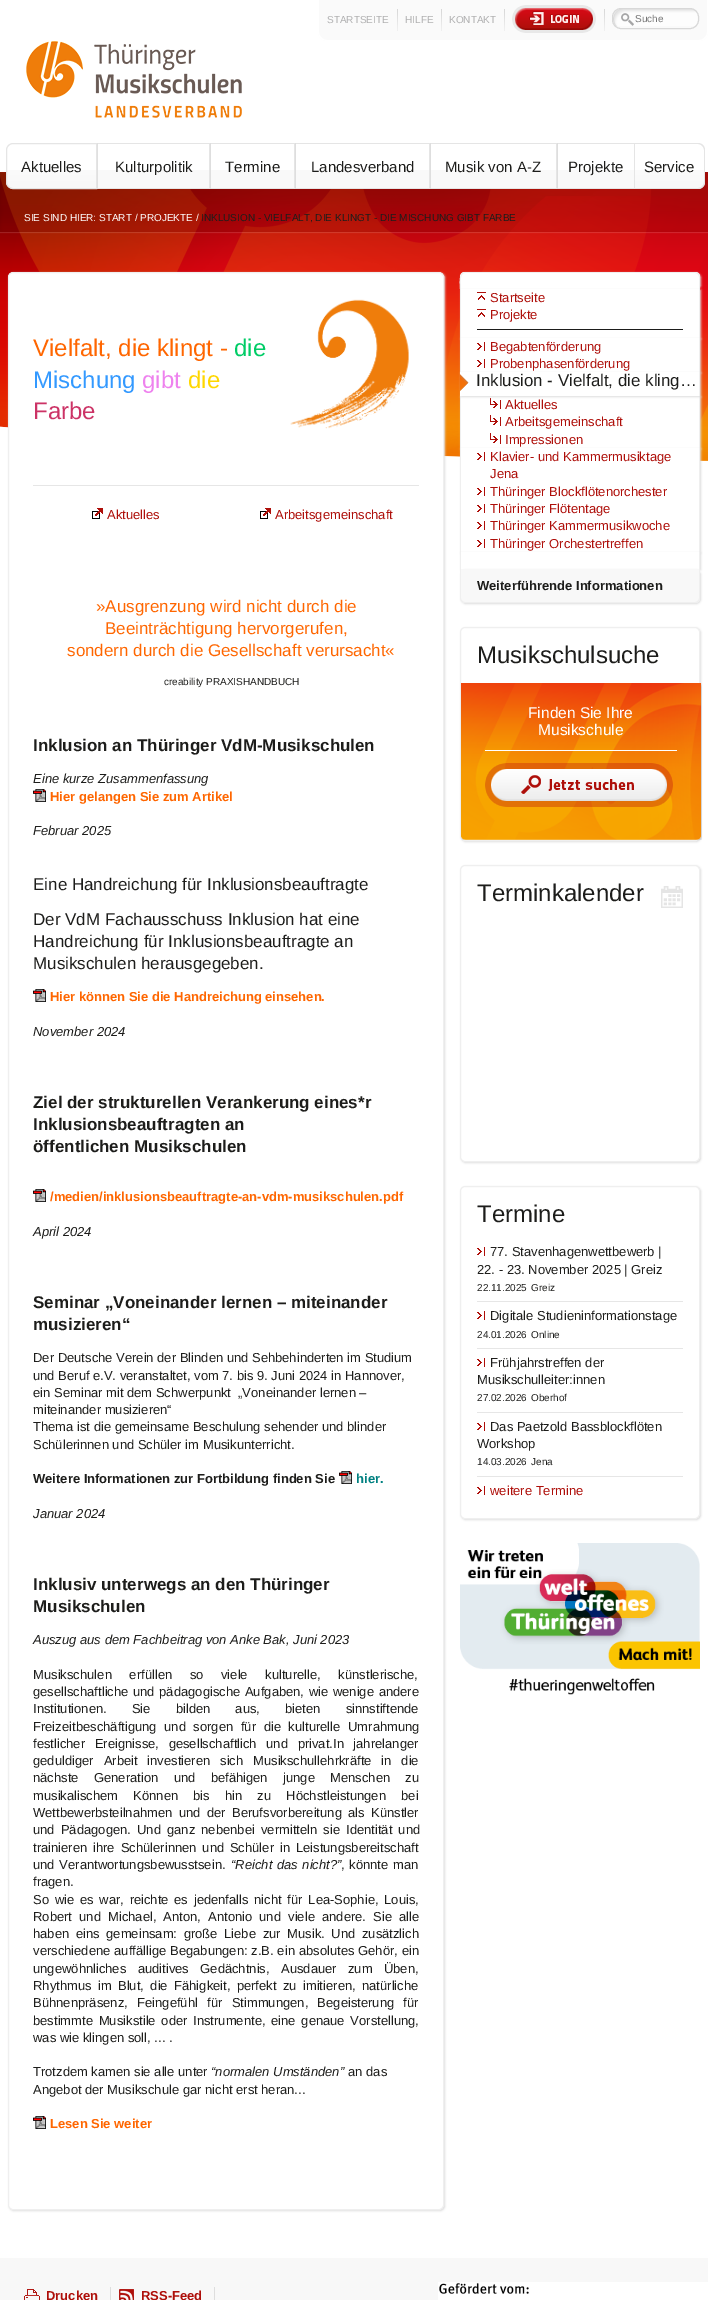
%!PS-Adobe-3.0
%%BoundingBox: 0 0 708 2300
%%LanguageLevel: 3
%%Pages: 1
%%EndComments
%%BeginProlog
/setink { dup -16 bitshift 255 div exch dup -8 bitshift 255 and 255 div exch 255 and 255 div setrgbcolor } def
/usefont { [ exch dup neg 0 0 3 -1 roll 0 0 ] selectfont } def
/setalpha { dup .setfillconstantalpha .setstrokeconstantalpha } def
/rrect { 5 dict begin { /r /h /w /y /x } { exch def } forall
  x r add y moveto x w add y 2 copy h add r arct x w add y h add x 1 index r arct
  x y h add x y r arct x y 2 copy exch w add exch r arct closepath end } def
/softshadow { 12 dict begin { /a /b /q /h /w /y /x } { exch def } forall gsave /was 0 def
  9 -2 -9 { dup b mul 4 div /e exch def 1 sub .425 mul 2.718 exch exp 1 add a .99 .min exch div /now exch def
    1 1 now sub 1 was sub div sub setalpha /was now def
    w h .min e 2 mul add 0 gt { x e sub y e sub w e 2 mul add h e 2 mul add
      q e add b .6 mul add w h .min 2 div e add .min 0 .max rrect fill } if } for grestore end } def
/drawimage { 5 dict begin { /h /w /y /x /name } { exch def } forall
  gsave x y translate w h scale
  w h 8 [w 0 0 h 0 0] name (r) file false 3 colorimage grestore end } def
%%EndProlog
%%BeginSetup
<< /PageSize [708 2300] /PageUsesTransparency true >> setpagedevice
%%EndSetup
%%Page: 1 1
0 .pushpdf14devicefilter
0 2300 translate 1 -1 scale
4 setmiterlimit
16#FFFFFF setink
0 0 708 2300 rectfill
16#FAFAFA setink
318 0 moveto 504 0 lineto 504 41 lineto 327 41 lineto 322 41 318 37 318 32 curveto closepath fill
16#FFFFFF setink
318 0 moveto 504 0 lineto 504 41 lineto 327 41 lineto 322 41 318 37 318 32 curveto closepath 319 0 moveto 504 0 lineto 504 40 lineto 327 40 lineto 323 40 319 36 319 32 curveto closepath eofill
/LiberationSans-Regular 10 usefont
16#B0B0B1 setink
327 23 moveto (STARTSEITE) show
(img1.raw) 397 9 1 22 drawimage
405 23 moveto (HILFE) show
(img1.raw) 441 9 1 22 drawimage
449 23 moveto (KONTAKT) show
16#FAFAFA setink
504 0 moveto 708 0 lineto 708 32 lineto 708 37 704 41 699 41 curveto 504 41 lineto closepath fill
16#FFFFFF setink
504 0 moveto 708 0 lineto 708 32 lineto 708 37 704 41 699 41 curveto 504 41 lineto closepath 504 0 moveto 707 0 lineto 707 32 lineto 707 36 703 40 699 40 curveto 504 40 lineto closepath eofill
(img1.raw) 504 9 1 22 drawimage
(img2.raw) 512 5 84 28 drawimage
(img1.raw) 604 9 1 22 drawimage
(img3.raw) 613 9 84 17 drawimage
16#D8D8D8 setink
612.5 8.5 86 20 8.5 rrect stroke
16#757575 setink
635 22 moveto (Suche) show
(img4.raw) 26 41 216 77 drawimage
(img18.raw) 0 172 6 255 drawimage
(img19.raw) 705 172 3 1 drawimage
(img20.raw) 0 172 708 289 drawimage
16#DEDEDE setink
97 143 1 46 rectfill
(img5.raw) 6 170 90 19 drawimage
16#E5E5E5 setink
13 143.5 moveto 96.5 143.5 lineto 96.5 188.5 lineto 13 188.5 lineto 9.5 188.5 6.5 185.5 6.5 182 curveto 6.5 150 lineto 6.5 146.5 9.5 143.5 13 143.5 curveto closepath stroke
/LiberationSans-Regular 15 usefont
16#1D1D1B setink
21 172 moveto (Aktuelles) show
[
    [210 143 1 46 16#DEDEDE]
    [98 170 111 18 16#F9F9F9]
    [98 143 112 1 16#E5E5E5]
    [209 143 1 46 16#E5E5E5]
    [98 188 112 1 16#E5E5E5]
] { aload pop setink rectfill } forall
16#1D1D1B setink
115 172 moveto (Kulturpolitik) show
[
    [295 143 1 46 16#DEDEDE]
    [211 170 83 18 16#F9F9F9]
    [211 143 84 1 16#E5E5E5]
    [294 143 1 46 16#E5E5E5]
    [211 188 84 1 16#E5E5E5]
] { aload pop setink rectfill } forall
16#1D1D1B setink
225 172 moveto (Termine) show
[
    [430 143 1 46 16#DEDEDE]
    [296 170 133 18 16#F9F9F9]
    [296 143 134 1 16#E5E5E5]
    [429 143 1 46 16#E5E5E5]
    [296 188 134 1 16#E5E5E5]
] { aload pop setink rectfill } forall
16#1D1D1B setink
311 172 moveto (Landesverband) show
[
    [557 143 1 46 16#DEDEDE]
    [431 170 125 18 16#F9F9F9]
    [431 143 126 1 16#E5E5E5]
    [556 143 1 46 16#E5E5E5]
    [431 188 126 1 16#E5E5E5]
] { aload pop setink rectfill } forall
16#1D1D1B setink
445 172 moveto (Musik von A-Z) show
[
    [558 170 76 18 16#F9F9F9]
    [558 143 77 1 16#E5E5E5]
    [634 143 1 46 16#E5E5E5]
    [558 188 77 1 16#E5E5E5]
] { aload pop setink rectfill } forall
16#1D1D1B setink
568 172 moveto (Projekte) show
(img6.raw) 635 170 70 19 drawimage
16#E5E5E5 setink
635 143 moveto 698 143 lineto 702 143 705 146 705 150 curveto 705 182 lineto 705 186 702 189 698 189 curveto 635 189 lineto closepath 635 144 moveto 698 144 lineto 701 144 704 147 704 150 curveto 704 182 lineto 704 185 701 188 698 188 curveto 635 188 lineto closepath eofill
16#1D1D1B setink
644 172 moveto (Service) show
/LiberationSans-Regular 10 usefont
16#FFFFFF setink
24 221 moveto (SIE SIND HIER: START / PROJEKTE /) show
16#1D1D1B setink
201 221 moveto (INKLUSION - VIELFALT, DIE KLINGT - DIE MISCHUNG GIBT FARBE) show
16#DBDBDC setink
9 273 436 1938 5 1 1 softshadow
16#FFFFFF setink
8.5 272.5 435 1937 4.5 rrect gsave fill grestore
16#EFEFEF setink
stroke
/LiberationSans-Regular 24 usefont
16#FF6600 setink
33 356 moveto (Vielfalt, die klingt -) show
16#00CC66 setink
234 356 moveto (die) show
16#3399FF setink
33 388 moveto (Mischung) show
16#EE82EE setink
142 388 moveto (gibt) show
16#FFD700 setink
188 388 moveto (die) show
16#CC3366 setink
33 419 moveto (Farbe) show
(img7.raw) 290 299 119 130 drawimage
16#E6E6E6 setink
33 485 386 1 rectfill
(img8.raw) 92 508 11 11 drawimage
/LiberationSans-Regular 13 usefont
16#AE0F0A setink
107 519 moveto (Aktuelles) show
(img8.raw) 260 508 11 11 drawimage
275 519 moveto (Arbeitsgemeinschaft) show
/LiberationSans-Regular 17 usefont
16#FF6600 setink
[
    [(»Ausgrenzung wird nicht durch die) 96 612]
    [(Beeinträchtigung hervorgerufen,) 105 634]
    [(sondern durch die Gesellschaft verursacht«) 67 656]
] { aload pop moveto show } forall
/LiberationSans-Regular 10 usefont
16#1D1D1B setink
164 685 moveto (creability PRAXISHANDBUCH) show
/LiberationSans-Bold 17 usefont
33 751 moveto (Inklusion an Thüringer VdM-Musikschulen) show
/LiberationSans-Italic 13 usefont
33 783 moveto (Eine kurze Zusammenfassung) show
(img9.raw) 33 789 13 13 drawimage
/LiberationSans-Bold 13 usefont
16#FF6600 setink
50 801 moveto (Hier gelangen Sie zum Artikel) show
/LiberationSans-Italic 13 usefont
16#1D1D1B setink
33 835 moveto (Februar 2025) show
/LiberationSans-Regular 17 usefont
[
    [(Eine Handreichung für Inklusionsbeauftragte) 33 890]
    [(Der VdM Fachausschuss Inklusion hat eine) 33 925]
    [(Handreichung für Inklusionsbeauftragte an) 33 947]
    [(Musikschulen herausgegeben.) 33 969]
] { aload pop moveto show } forall
(img9.raw) 33 989 13 13 drawimage
/LiberationSans-Bold 13 usefont
16#FF6600 setink
50 1001 moveto (Hier können Sie die Handreichung einsehen.) show
/LiberationSans-Italic 13 usefont
16#1D1D1B setink
33 1036 moveto (November 2024) show
/LiberationSans-Bold 17 usefont
[
    [(Ziel der strukturellen Verankerung eines*r) 33 1108]
    [(Inklusionsbeauftragten an) 33 1130]
    [(öffentlichen Musikschulen) 33 1152]
] { aload pop moveto show } forall
(img9.raw) 33 1189 13 13 drawimage
/LiberationSans-Bold 13 usefont
16#FF6600 setink
50 1201 moveto (/medien/inklusionsbeauftragte-an-vdm-musikschulen.pdf) show
/LiberationSans-Italic 13 usefont
16#1D1D1B setink
33 1236 moveto (April 2024) show
/LiberationSans-Bold 17 usefont
33 1308 moveto (Seminar „Voneinander lernen – miteinander) show
33 1330 moveto (musizieren“) show
/LiberationSans-Regular 13 usefont
[
    [(Der Deutsche Verein der Blinden und Sehbehinderten im Studium) 33 1362]
    [(und Beruf e.V. veranstaltet, vom 7. bis 9. Juni 2024 in Hannover,) 33 1380]
    [(ein Seminar mit dem Schwerpunkt  „Voneinander lernen –) 33 1397]
    [(miteinander musizieren“) 33 1414]
    [(Thema ist die gemeinsame Beschulung sehender und blinder) 33 1431]
    [(Schülerinnen und Schüler im Musikunterricht.) 33 1449]
] { aload pop moveto show } forall
/LiberationSans-Bold 13 usefont
33 1483 moveto (Weitere Informationen zur Fortbildung finden Sie) show
(img9.raw) 339 1471 13 13 drawimage
16#008080 setink
356 1483 moveto (hier.) show
/LiberationSans-Italic 13 usefont
16#1D1D1B setink
33 1518 moveto (Januar 2024) show
/LiberationSans-Bold 17 usefont
33 1590 moveto (Inklusiv unterwegs an den Thüringer) show
33 1612 moveto (Musikschulen) show
/LiberationSans-Italic 13 usefont
33 1644 moveto (Auszug aus dem Fachbeitrag von Anke Bak, Juni 2023) show
/LiberationSans-Regular 13 usefont
33 1679 moveto 14 0 32 (Musikschulen erfüllen so viele kulturelle, künstlerische,) widthshow
33 1696 moveto 1 0 32 (gesellschaftliche und pädagogische Aufgaben, wie wenige andere) widthshow
33 1713 moveto 21.5 0 32 (Institutionen. Sie bilden aus, bieten sinnstiftende) widthshow
33 1731 moveto 4 0 32 (Freizeitbeschäftigung und sorgen für die kulturelle Umrahmung) widthshow
33 1748 moveto 6 0 32 (festlicher Ereignisse, gesellschaftlich und privat.In jahrelanger) widthshow
33 1765 moveto 6.25 0 32 (geduldiger Arbeit investieren sich Musikschullehrkräfte in die) widthshow
33 1782 moveto 11.75 0 32 (nächste Generation und befähigen junge Menschen zu) widthshow
33 1800 moveto 11.5 0 32 (musikalischem Können bis hin zu Höchstleistungen bei) widthshow
33 1817 moveto 2.75 0 32 (Wettbewerbsteilnahmen und der Berufsvorbereitung als Künstler) widthshow
33 1834 moveto 2.5 0 32 (und Pädagogen. Und ganz nebenbei vermitteln sie Identität und) widthshow
33 1852 moveto 2.25 0 32 (trainieren ihre Schülerinnen und Schüler in Leistungsbereitschaft) widthshow
33 1869 moveto 1 0 32 (und Verantwortungsbewusstsein.) widthshow
/LiberationSans-Italic 13 usefont
231 1869 moveto 1 0 32 (“Reicht das nicht?”) widthshow
/LiberationSans-Regular 13 usefont
341 1869 moveto 1 0 32 (, könnte man) widthshow
33 1886 moveto (fragen.) show
33 1904 moveto 2.1 0 32 (So wie es war, reichte es jedenfalls nicht für Lea-Sophie, Louis,) widthshow
33 1921 moveto 3.5 0 32 (Robert und Michael, Anton, Antonio und viele andere. Sie alle) widthshow
33 1938 moveto 3 0 32 (haben eins gemeinsam: große Liebe zur Musik. Und zusätzlich) widthshow
33 1955 moveto 0.25 0 32 (verschiedene auffällige Begabungen: z.B. ein absolutes Gehör, ein) widthshow
33 1973 moveto 7.75 0 32 (ungewöhnliches auditives Gedächtnis, Ausdauer zum Üben,) widthshow
33 1990 moveto 2.75 0 32 (Rhythmus im Blut, die Fähigkeit, perfekt zu imitieren, natürliche) widthshow
33 2007 moveto 5.75 0 32 (Bühnenpräsenz, Feingefühl für Stimmungen, Begeisterung für) widthshow
33 2025 moveto 2.1 0 32 (bestimmte Musikstile oder Instrumente, eine genaue Vorstellung,) widthshow
33 2042 moveto (was wie klingen soll, ... .) show
33 2076 moveto (Trotzdem kamen sie alle unter) show
/LiberationSans-Italic 13 usefont
211 2076 moveto (“normalen Umständen”) show
/LiberationSans-Regular 13 usefont
348 2076 moveto (an das) show
33 2094 moveto (Angebot der Musikschule gar nicht erst heran...) show
(img9.raw) 33 2116 13 13 drawimage
/LiberationSans-Bold 13 usefont
16#FF6600 setink
50 2128 moveto (Lesen Sie weiter) show
16#DBDBDC setink
461 273 240 17 5 1 1 softshadow
16#FFFFFF setink
465 272 moveto 695 272 lineto 698 272 700 274 700 277 curveto 700 289 lineto 460 289 lineto 460 277 lineto 460 274 462 272 465 272 curveto closepath fill
16#EFEFEF setink
465 272 moveto 695 272 lineto 698 272 700 274 700 277 curveto 700 289 lineto 460 289 lineto 460 285 458 272 465 272 curveto closepath 465 273 moveto 695 273 lineto 697 273 699 275 699 277 curveto 699 289 lineto 461 289 lineto 461 285 459 273 465 273 curveto closepath eofill
16#DBDBDC setink
461 290 240 49 0 1 1 softshadow
[
    [461 289 238 49 16#FFFFFF]
    [699 289 1 49 16#EFEFEF]
    [460 289 1 49 16#EFEFEF]
] { aload pop setink rectfill } forall
(img10.raw) 477 292 9 8 drawimage
/LiberationSans-Regular 13 usefont
16#AE0F0A setink
490 302 moveto (Startseite) show
(img10.raw) 477 309 9 8 drawimage
490 319 moveto (Projekte) show
16#1D1D1B setink
477 329 206 1 rectfill
16#DBDBDC setink
461 339 240 34 0 1 1 softshadow
[
    [461 338 238 34 16#FFFFFF]
    [699 338 1 34 16#EFEFEF]
    [460 338 1 34 16#EFEFEF]
] { aload pop setink rectfill } forall
(img11.raw) 477 342 8 9 drawimage
16#AE0F0A setink
490 351 moveto (Begabtenförderung) show
(img11.raw) 477 359 8 9 drawimage
490 368 moveto (Probenphasenförderung) show
16#DBDBDC setink
461 397 240 52 0 1 1 softshadow
[
    [461 396 238 52 16#FFFFFF]
    [699 396 1 52 16#EFEFEF]
    [460 396 1 52 16#EFEFEF]
] { aload pop setink rectfill } forall
(img13.raw) 490 398 11 11 drawimage
gsave
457 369 moveto 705 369 lineto 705 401 lineto 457 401 lineto closepath 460 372 moveto 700 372 lineto 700 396 lineto 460 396 lineto closepath eoclip newpath
16#DBDBDC setink
461 373 240 24 0 1 1 softshadow
grestore
(img12.raw) 460 372 239 24 drawimage
699 372 1 24 rectfill
/LiberationSans-Regular 16.9 usefont
16#1D1D1B setink
476 386 moveto (Inklusion - Vielfalt, die kling…) show
/LiberationSans-Regular 13 usefont
16#AE0F0A setink
505 409 moveto (Aktuelles) show
(img13.raw) 490 415 11 11 drawimage
505 426 moveto (Arbeitsgemeinschaft) show
(img13.raw) 490 433 11 11 drawimage
16#DBDBDC setink
461 449 240 104 0 1 1 softshadow
16#AE0F0A setink
505 444 moveto (Impressionen) show
[
    [461 448 238 104 16#FFFFFF]
    [699 448 1 104 16#EFEFEF]
    [460 448 1 104 16#EFEFEF]
] { aload pop setink rectfill } forall
(img11.raw) 477 452 8 9 drawimage
16#AE0F0A setink
490 461 moveto (Klavier- und Kammermusiktage) show
490 478 moveto (Jena) show
(img11.raw) 477 487 8 9 drawimage
490 496 moveto (Thüringer Blockflötenorchester) show
(img11.raw) 477 504 8 9 drawimage
490 513 moveto (Thüringer Flötentage) show
(img11.raw) 477 521 8 9 drawimage
490 530 moveto (Thüringer Kammermusikwoche) show
(img11.raw) 477 539 8 9 drawimage
16#DBDBDC setink
461 553 240 17 0 1 1 softshadow
16#AE0F0A setink
490 548 moveto (Thüringer Orchestertreffen) show
[
    [461 552 238 17 16#FFFFFF]
    [699 552 1 17 16#EFEFEF]
    [460 552 1 17 16#EFEFEF]
] { aload pop setink rectfill } forall
16#DBDBDC setink
461 570 240 34 5 1 1 softshadow
16#F8F8F8 setink
460 569 moveto 700 569 lineto 700 598 lineto 700 601 698 603 695 603 curveto 465 603 lineto 462 603 460 601 460 598 curveto closepath fill
16#EFEFEF setink
460 569 moveto 700 569 lineto 700 598 lineto 700 601 698 603 695 603 curveto 465 603 lineto 462 603 460 601 460 598 curveto closepath 461 569 moveto 699 569 lineto 699 598 lineto 699 600 697 602 695 602 curveto 465 602 lineto 463 602 461 600 461 598 curveto closepath eofill
/LiberationSans-Bold 13 usefont
16#1D1D1B setink
477 590 moveto (Weiterführende Informationen) show
16#DBDBDC setink
461 628 240 214 5 1 1 softshadow
16#FFFFFF setink
460.5 627.5 239 213 4.5 rrect gsave fill grestore
16#EFEFEF setink
stroke
/LiberationSans-Regular 24 usefont
16#1D1D1B setink
477 663 moveto (Musikschulsuche) show
(img14.raw) 461 683 241 157 drawimage
16#FFFFFF setink
485 750 192 1 rectfill
/LiberationSans-Regular 15.5 usefont
528 718 moveto (Finden Sie Ihre) show
538 735 moveto (Musikschule) show
(img15.raw) 485 763 188 44 drawimage
16#DBDBDC setink
461 866 240 297 5 1 1 softshadow
16#FFFFFF setink
460.5 865.5 239 296 4.5 rrect gsave fill grestore
16#EFEFEF setink
stroke
/LiberationSans-Regular 24 usefont
16#1D1D1B setink
477 901 moveto (Terminkalender) show
(img16.raw) 661 886 22 22 drawimage
16#DBDBDC setink
461 1187 240 333 5 1 1 softshadow
16#FFFFFF setink
460.5 1186.5 239 332 4.5 rrect gsave fill grestore
16#EFEFEF setink
stroke
16#1D1D1B setink
477 1222 moveto (Termine) show
16#E6E6E6 setink
477 1301 206 1 rectfill
(img11.raw) 477 1247 8 9 drawimage
/LiberationSans-Regular 13 usefont
16#1D1D1B setink
490 1256 moveto (77. Stavenhagenwettbewerb |) show
477 1274 moveto (22. - 23. November 2025 | Greiz) show
/LiberationSans-Regular 10 usefont
477 1291 moveto (22.11.2025) show
531 1291 moveto (Greiz) show
16#E6E6E6 setink
477 1348 206 1 rectfill
(img11.raw) 477 1311 8 9 drawimage
/LiberationSans-Regular 13 usefont
16#1D1D1B setink
490 1320 moveto (Digitale Studieninformationstage) show
/LiberationSans-Regular 10 usefont
477 1338 moveto (24.01.2026) show
531 1338 moveto (Online) show
16#E6E6E6 setink
477 1412 206 1 rectfill
(img11.raw) 477 1358 8 9 drawimage
/LiberationSans-Regular 13 usefont
16#1D1D1B setink
490 1367 moveto (Frühjahrstreffen der) show
477 1384 moveto (Musikschulleiter:innen) show
/LiberationSans-Regular 10 usefont
477 1401 moveto (27.02.2026) show
531 1401 moveto (Oberhof) show
16#E6E6E6 setink
477 1476 206 1 rectfill
(img11.raw) 477 1422 8 9 drawimage
/LiberationSans-Regular 13 usefont
16#1D1D1B setink
490 1431 moveto (Das Paetzold Bassblockflöten) show
477 1448 moveto (Workshop) show
/LiberationSans-Regular 10 usefont
477 1465 moveto (14.03.2026) show
531 1465 moveto (Jena) show
(img11.raw) 477 1486 8 9 drawimage
/LiberationSans-Regular 13 usefont
16#AE0F0A setink
490 1495 moveto (weitere Termine) show
(img17.raw) 460 1543 240 152 drawimage
16#F8F8F8 setink
0 2258 708 42 rectfill
(img21.raw) 24 2289 16 11 drawimage
16#DEDEDE setink
110 2287 1 13 rectfill
/LiberationSans-Bold 13 usefont
16#AE0F0A setink
46 2300 moveto (Drucken) show
(img22.raw) 119 2289 15 11 drawimage
16#DEDEDE setink
214 2287 1 13 rectfill
16#AE0F0A setink
141 2300 moveto (RSS-Feed) show
(img23.raw) 438 2282 270 18 drawimage
.poppdf14devicefilter showpage
%%EOF
